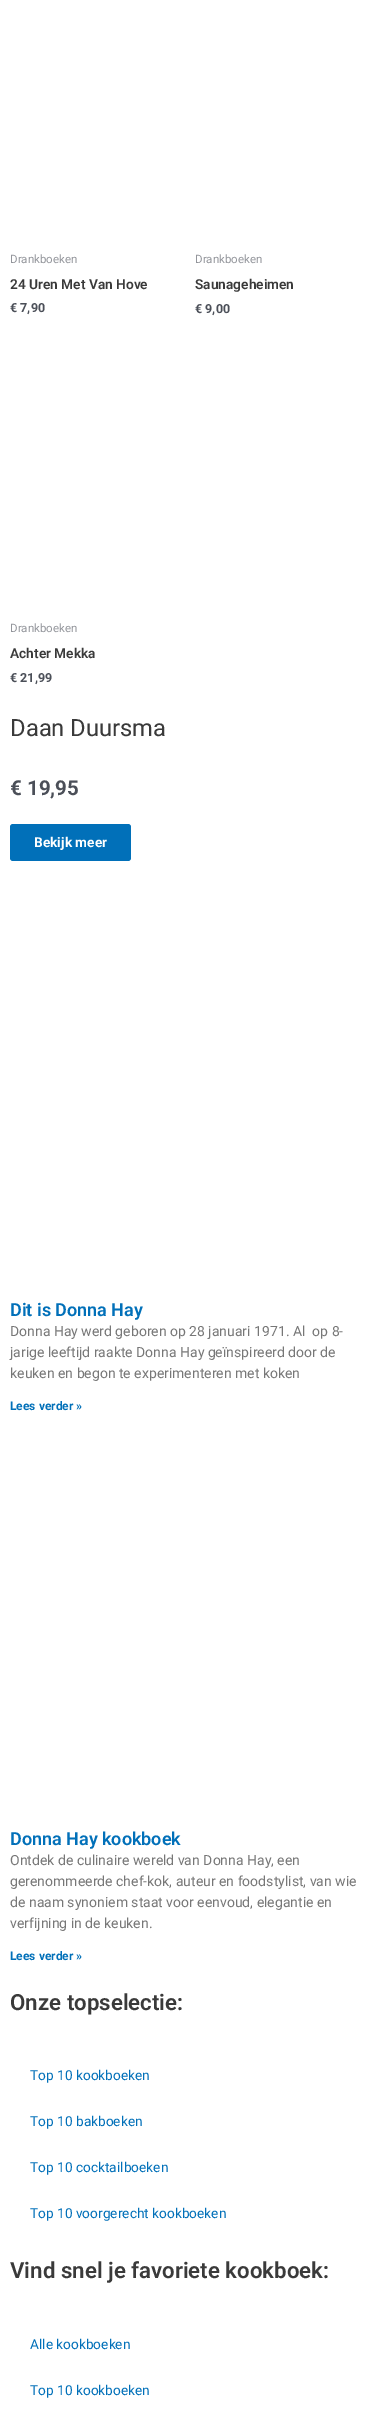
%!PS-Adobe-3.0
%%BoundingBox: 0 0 369 2414
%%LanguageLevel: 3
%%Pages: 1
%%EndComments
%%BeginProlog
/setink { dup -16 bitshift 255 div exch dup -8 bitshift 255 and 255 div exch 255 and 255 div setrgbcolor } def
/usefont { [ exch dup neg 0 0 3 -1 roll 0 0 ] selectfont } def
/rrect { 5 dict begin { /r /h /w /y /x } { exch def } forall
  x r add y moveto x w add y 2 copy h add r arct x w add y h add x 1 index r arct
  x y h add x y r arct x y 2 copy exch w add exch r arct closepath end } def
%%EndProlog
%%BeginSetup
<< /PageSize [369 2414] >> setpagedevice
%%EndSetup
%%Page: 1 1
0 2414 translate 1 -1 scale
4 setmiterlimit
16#FFFFFF setink
0 0 369 2414 rectfill
/Roboto-Regular 11.5 usefont
16#93959B setink
10 263 moveto (Drankboeken) show
/Roboto-SemiBold 13.7 usefont
16#3A3A3A setink
10 289 moveto (24 Uren Met Van Hove) show
/Roboto-Bold 12.5 usefont
16#4B4F58 setink
10 312 moveto (€ 7,90) show
/Roboto-Regular 11.5 usefont
16#93959B setink
195 263 moveto (Drankboeken) show
/Roboto-SemiBold 13.7 usefont
16#3A3A3A setink
195 289 moveto (Saunageheimen) show
/Roboto-Bold 12.5 usefont
16#4B4F58 setink
195 313 moveto (€ 9,00) show
/Roboto-Regular 11.5 usefont
16#93959B setink
10 632 moveto (Drankboeken) show
/Roboto-SemiBold 13.7 usefont
16#3A3A3A setink
10 658 moveto (Achter Mekka) show
/Roboto-Bold 12.5 usefont
16#4B4F58 setink
10 682 moveto (€ 21,99) show
/Roboto-Regular 23.75 usefont
16#3A3A3A setink
10 736 moveto (Daan Duursma) show
/Roboto-Bold 20.5 usefont
16#4B4F58 setink
10 795 moveto (€ 19,95) show
16#0170B9 setink
10 824 121 37 3 rrect fill
/Roboto-Bold 13.7 usefont
16#FFFFFF setink
34 847 moveto (Bekijk meer) show
/Roboto-SemiBold 18 usefont
16#0170B9 setink
10 1316 moveto (Dit is Donna Hay) show
/Roboto-Regular 14 usefont
16#777777 setink
[
    [(Donna Hay werd geboren op 28 januari 1971. Al  op 8-) 10 1336]
    [(jarige leeftijd raakte Donna Hay geïnspireerd door de) 10 1357]
    [(keuken en begon te experimenteren met koken) 10 1378]
] { aload pop moveto show } forall
/Roboto-Bold 12 usefont
16#0170B9 setink
10 1410 moveto (Lees verder ») show
/Roboto-SemiBold 18 usefont
10 1845 moveto (Donna Hay kookboek) show
/Roboto-Regular 14 usefont
16#777777 setink
[
    [(Ontdek de culinaire wereld van Donna Hay, een) 10 1865]
    [(gerenommeerde chef-kok, auteur en foodstylist, van wie) 10 1886]
    [(de naam synoniem staat voor eenvoud, elegantie en) 10 1907]
    [(verfijning in de keuken.) 10 1928]
] { aload pop moveto show } forall
/Roboto-Bold 12 usefont
16#0170B9 setink
10 1960 moveto (Lees verder ») show
/Roboto-SemiBold 22.25 usefont
16#3A3A3A setink
10 2010 moveto (Onze topselectie:) show
/Roboto-Regular 13.7 usefont
16#0170B9 setink
[
    [(Top 10 kookboeken) 30 2080]
    [(Top 10 bakboeken) 30 2126]
    [(Top 10 cocktailboeken) 30 2172]
    [(Top 10 voorgerecht kookboeken) 30 2218]
] { aload pop moveto show } forall
/Roboto-SemiBold 22.25 usefont
16#3A3A3A setink
10 2278 moveto (Vind snel je favoriete kookboek:) show
/Roboto-Regular 13.7 usefont
16#0170B9 setink
30 2349 moveto (Alle kookboeken) show
30 2395 moveto (Top 10 kookboeken) show
showpage
%%EOF
